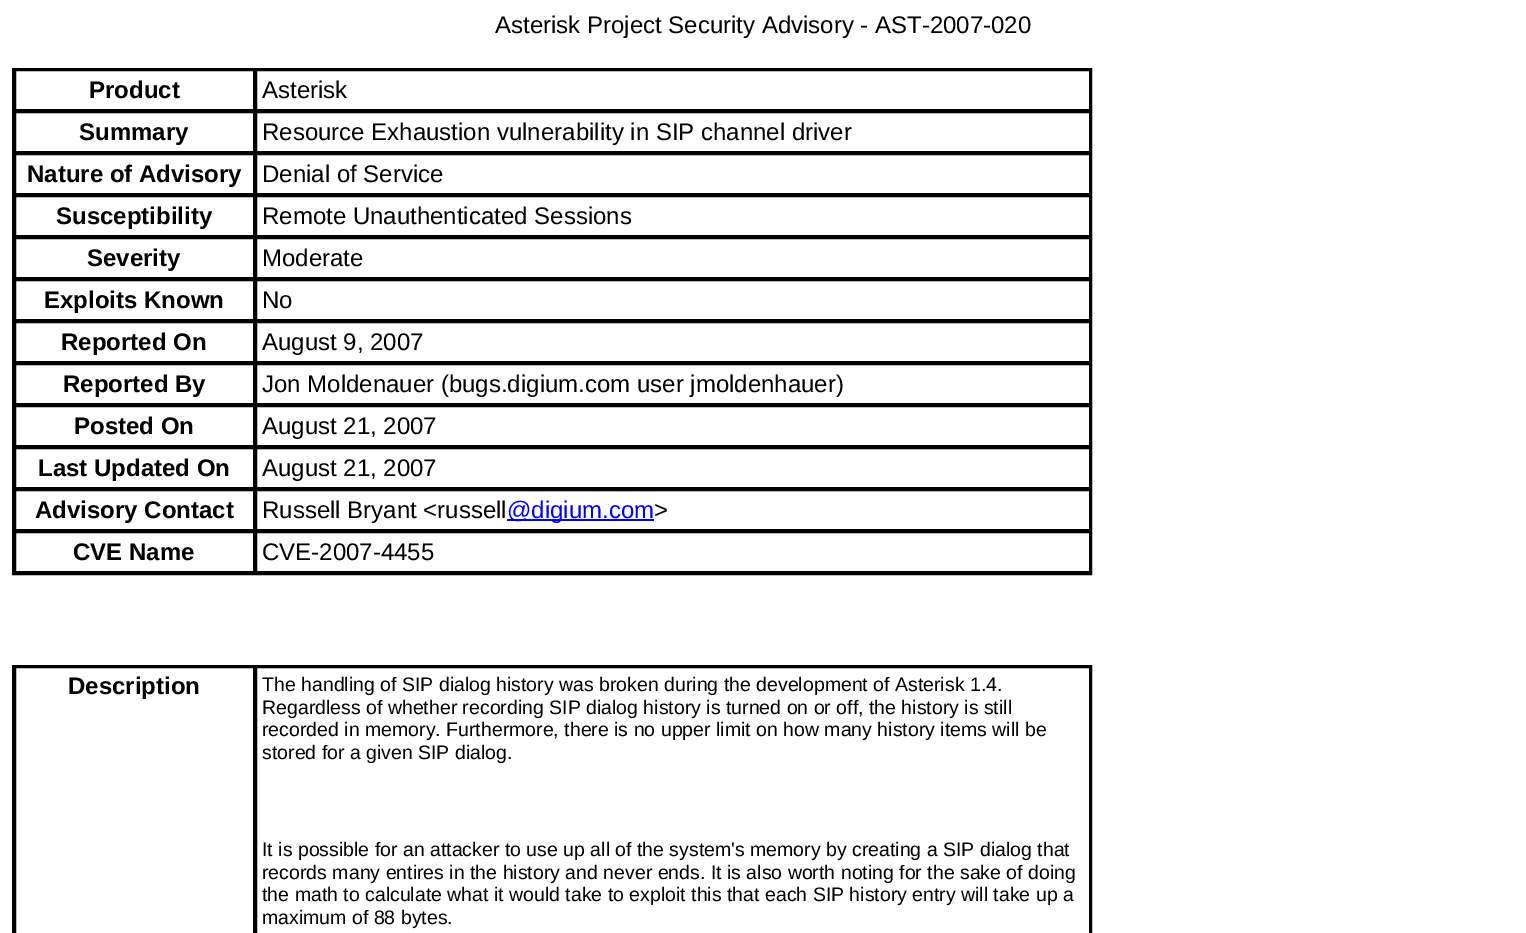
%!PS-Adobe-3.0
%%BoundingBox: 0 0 1526 933
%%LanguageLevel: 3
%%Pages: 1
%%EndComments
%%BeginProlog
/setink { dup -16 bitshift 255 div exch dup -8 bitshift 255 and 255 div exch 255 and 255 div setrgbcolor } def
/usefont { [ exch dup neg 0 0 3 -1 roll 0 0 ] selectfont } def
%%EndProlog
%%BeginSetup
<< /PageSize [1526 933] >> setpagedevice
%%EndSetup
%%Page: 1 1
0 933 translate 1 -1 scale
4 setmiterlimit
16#FFFFFF setink
0 0 1526 933 rectfill
/LiberationSans-Regular 24 usefont
16#000000 setink
495 33 moveto (Asterisk Project Security Advisory - AST-2007-020) show
2 setlinewidth
13 69 1078 505 rectstroke
15 70 239 40 rectstroke
/LiberationSans-Bold 24 usefont
89 98 moveto (Product) show
256 70 834 40 rectstroke
/LiberationSans-Regular 24 usefont
262 98 moveto (Asterisk) show
15 112 239 40 rectstroke
/LiberationSans-Bold 24 usefont
79 140 moveto (Summary) show
256 112 834 40 rectstroke
/LiberationSans-Regular 24 usefont
262 140 moveto (Resource Exhaustion vulnerability in SIP channel driver) show
15 154 239 40 rectstroke
/LiberationSans-Bold 24 usefont
27 182 moveto (Nature of Advisory) show
256 154 834 40 rectstroke
/LiberationSans-Regular 24 usefont
262 182 moveto (Denial of Service) show
15 196 239 40 rectstroke
/LiberationSans-Bold 24 usefont
56 224 moveto (Susceptibility) show
256 196 834 40 rectstroke
/LiberationSans-Regular 24 usefont
262 224 moveto (Remote Unauthenticated Sessions) show
15 238 239 40 rectstroke
/LiberationSans-Bold 24 usefont
87 266 moveto (Severity) show
256 238 834 40 rectstroke
/LiberationSans-Regular 24 usefont
262 266 moveto (Moderate) show
15 280 239 40 rectstroke
/LiberationSans-Bold 24 usefont
44 308 moveto (Exploits Known) show
256 280 834 40 rectstroke
/LiberationSans-Regular 24 usefont
262 308 moveto (No) show
15 322 239 40 rectstroke
/LiberationSans-Bold 24 usefont
61 350 moveto (Reported On) show
256 322 834 40 rectstroke
/LiberationSans-Regular 24 usefont
262 350 moveto (August 9, 2007) show
15 364 239 40 rectstroke
/LiberationSans-Bold 24 usefont
63 392 moveto (Reported By) show
256 364 834 40 rectstroke
/LiberationSans-Regular 24 usefont
262 392 moveto (Jon Moldenauer \(bugs.digium.com user jmoldenhauer\)) show
15 406 239 40 rectstroke
/LiberationSans-Bold 24 usefont
74 434 moveto (Posted On) show
256 406 834 40 rectstroke
/LiberationSans-Regular 24 usefont
262 434 moveto (August 21, 2007) show
15 448 239 40 rectstroke
/LiberationSans-Bold 24 usefont
38 476 moveto (Last Updated On) show
256 448 834 40 rectstroke
/LiberationSans-Regular 24 usefont
262 476 moveto (August 21, 2007) show
15 490 239 40 rectstroke
/LiberationSans-Bold 24 usefont
35 518 moveto (Advisory Contact) show
256 490 834 40 rectstroke
/LiberationSans-Regular 24 usefont
262 518 moveto (Russell Bryant <russell) show
16#0000EE setink
507 519 147 2 rectfill
507 518 moveto (@digium.com) show
16#000000 setink
654 518 moveto (>) show
15 532 239 40 rectstroke
/LiberationSans-Bold 24 usefont
73 560 moveto (CVE Name) show
256 532 834 40 rectstroke
/LiberationSans-Regular 24 usefont
262 560 moveto (CVE-2007-4455) show
13 666 1078 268 rectstroke
15 667 239 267 rectstroke
/LiberationSans-Bold 24 usefont
68 694 moveto (Description) show
256 667 834 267 rectstroke
/LiberationSans-Regular 19.5 usefont
[
    [(The handling of SIP dialog history was broken during the development of Asterisk 1.4.) 262 691]
    [(Regardless of whether recording SIP dialog history is turned on or off, the history is still) 262 714]
    [(recorded in memory. Furthermore, there is no upper limit on how many history items will be) 262 736]
    [(stored for a given SIP dialog.) 262 759]
    [(It is possible for an attacker to use up all of the system's memory by creating a SIP dialog that) 262 856]
    [(records many entires in the history and never ends. It is also worth noting for the sake of doing) 262 879]
    [(the math to calculate what it would take to exploit this that each SIP history entry will take up a) 262 901]
    [(maximum of 88 bytes.) 262 924]
] { aload pop moveto show } forall
showpage
%%EOF
